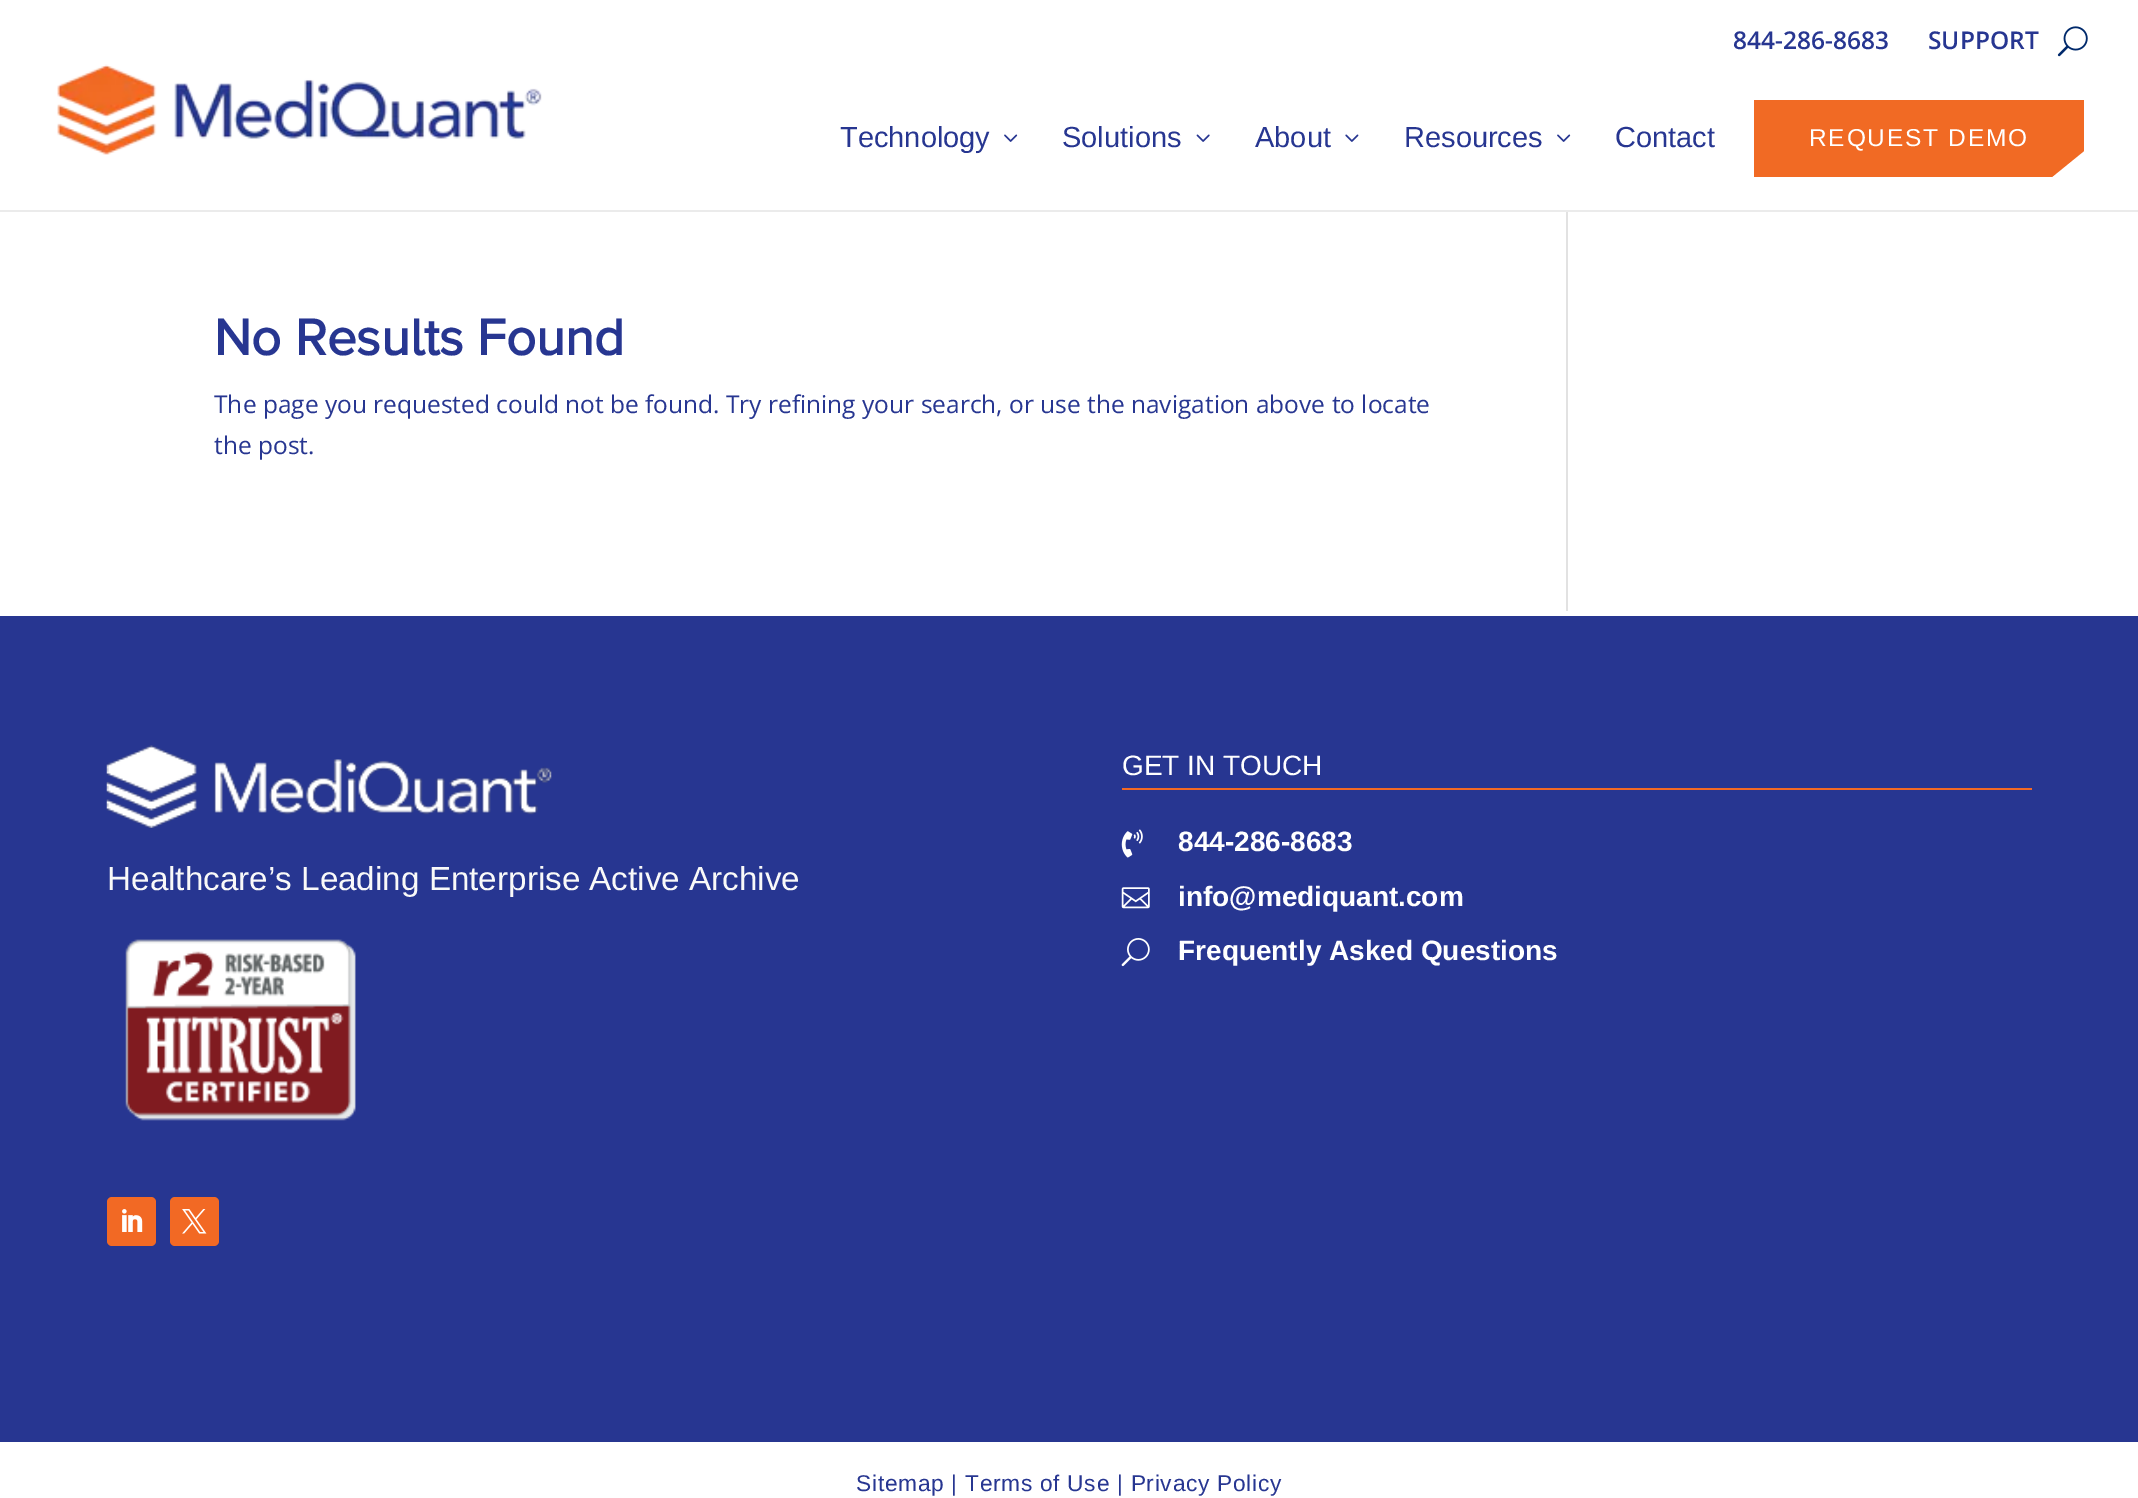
%!PS-Adobe-3.0
%%BoundingBox: 0 0 2138 1498
%%LanguageLevel: 3
%%Pages: 1
%%EndComments
%%BeginProlog
/setink { dup -16 bitshift 255 div exch dup -8 bitshift 255 and 255 div exch 255 and 255 div setrgbcolor } def
/usefont { [ exch dup neg 0 0 3 -1 roll 0 0 ] selectfont } def
/rrect { 5 dict begin { /r /h /w /y /x } { exch def } forall
  x r add y moveto x w add y 2 copy h add r arct x w add y h add x 1 index r arct
  x y h add x y r arct x y 2 copy exch w add exch r arct closepath end } def
/drawimage { 5 dict begin { /h /w /y /x /name } { exch def } forall
  gsave x y translate w h scale
  w h 8 [w 0 0 h 0 0] name (r) file false 3 colorimage grestore end } def
%%EndProlog
%%BeginSetup
<< /PageSize [2138 1498] >> setpagedevice
%%EndSetup
%%Page: 1 1
0 1498 translate 1 -1 scale
4 setmiterlimit
16#FFFFFF setink
0 0 2138 1498 rectfill
/OpenSans-SemiBold 24.5 usefont
16#273691 setink
1733 49 moveto (844-286-8683) show
1928 49 moveto (SUPPORT) show
(img1.raw) 2057 26 31 31 drawimage
16#EBEBEB setink
0 210 2138 2 rectfill
(img2.raw) 57 64 485 91 drawimage
/LiberationSans-Regular 29 usefont
16#273691 setink
840 147 moveto (Technology) show
(img3.raw) 1004 134 14 8 drawimage
1062 147 moveto (Solutions) show
(img4.raw) 1196 134 14 8 drawimage
1255 147 moveto (About) show
(img5.raw) 1345 134 14 8 drawimage
1404 147 moveto (Resources) show
(img3.raw) 1557 134 14 8 drawimage
1615 147 moveto (Contact) show
16#F16A24 setink
1754 100 moveto 2084 100 lineto 2084 151 lineto 2052 177 lineto 1754 177 lineto closepath fill
/LiberationSans-Regular 24.5 usefont
16#FFFFFF setink
1809 146 moveto 1.75 0 (REQUEST DEMO) ashow
/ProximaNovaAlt-Bold 52.5 usefont
16#273691 setink
214 355 moveto (No Results Found) show
/OpenSans-Regular 24.5 usefont
214 413 moveto (The page you requested could not be found. Try refining your search, or use the navigation above to locate) show
214 454 moveto (the post.) show
16#E2E2E2 setink
1566 212 2 399 rectfill
16#273691 setink
0 616 2138 826 rectfill
(img6.raw) 106 745 446 83 drawimage
/LiberationSans-Regular 33.25 usefont
16#F9F9F9 setink
107 890 moveto (Healthcare’s Leading Enterprise Active Archive) show
(img7.raw) 125 939 231 182 drawimage
16#F26924 setink
107 1197 49 49 5 rrect fill
(img8.raw) 122 1209 21 23 drawimage
170 1197 49 49 5 rrect fill
(img9.raw) 182 1209 25 25 drawimage
1122 788 910 2 rectfill
/LiberationSans-Regular 28 usefont
16#FFFFFF setink
1122 775 moveto (GET IN TOUCH) show
(img10.raw) 1121 829 22 29 drawimage
/LiberationSans-Bold 28 usefont
1178 851 moveto (844-286-8683) show
(img11.raw) 1121 887 29 22 drawimage
1178 906 moveto (info@mediquant.com) show
(img12.raw) 1121 938 29 29 drawimage
1178 960 moveto (Frequently Asked Questions) show
/LiberationSans-Regular 22.75 usefont
16#273691 setink
856 1491 moveto 0.7 0 (Sitemap | Terms of Use | Privacy Policy) ashow
showpage
%%EOF
